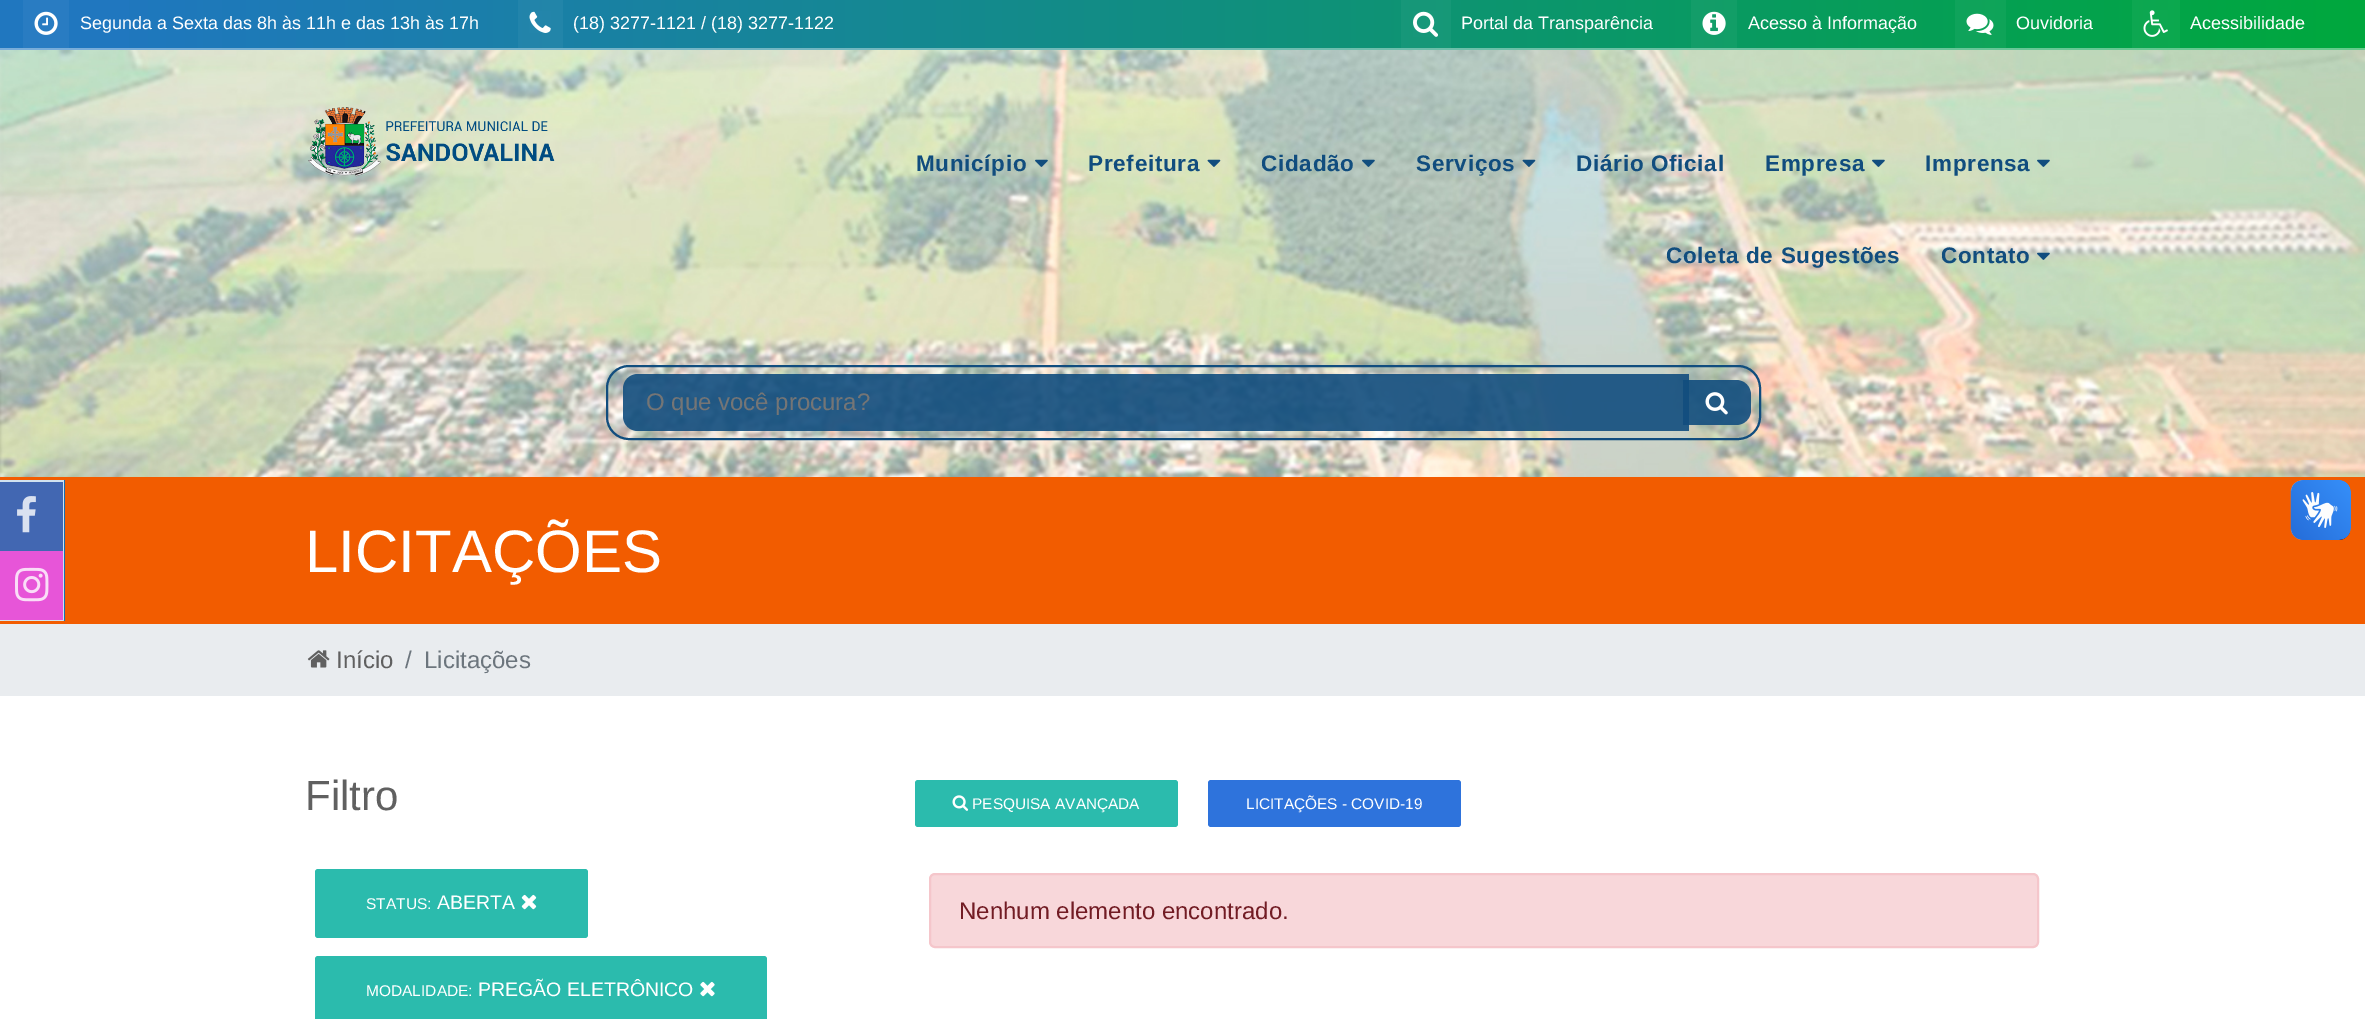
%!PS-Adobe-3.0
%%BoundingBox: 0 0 2365 1019
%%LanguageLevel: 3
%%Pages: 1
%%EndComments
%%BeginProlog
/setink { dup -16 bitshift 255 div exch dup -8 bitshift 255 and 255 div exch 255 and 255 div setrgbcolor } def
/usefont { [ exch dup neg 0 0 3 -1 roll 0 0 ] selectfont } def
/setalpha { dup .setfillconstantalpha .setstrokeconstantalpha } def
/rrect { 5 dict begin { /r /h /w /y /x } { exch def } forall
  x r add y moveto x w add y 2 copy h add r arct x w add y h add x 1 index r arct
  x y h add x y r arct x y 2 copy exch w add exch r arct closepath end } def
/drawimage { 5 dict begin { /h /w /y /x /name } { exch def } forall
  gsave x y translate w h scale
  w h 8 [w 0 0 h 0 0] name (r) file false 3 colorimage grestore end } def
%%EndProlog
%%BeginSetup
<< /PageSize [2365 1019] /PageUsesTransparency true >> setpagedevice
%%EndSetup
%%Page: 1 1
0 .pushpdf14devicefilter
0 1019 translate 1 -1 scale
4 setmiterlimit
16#FFFFFF setink
0 0 2365 1019 rectfill
(img1.raw) 0 50 2365 427 drawimage
gsave 0 0 moveto 2365 0 lineto 2365 50 lineto 0 50 lineto closepath clip newpath
<< /ShadingType 2 /ColorSpace /DeviceRGB /Coords [0 24 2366 24] /Extend [true true] /Function << /FunctionType 3 /Domain [0 1] /Functions [<< /FunctionType 2 /Domain [0 1] /C0 [0.125 0.467 0.749] /C1 [0.125 0.467 0.749] /N 1 >> << /FunctionType 2 /Domain [0 1] /C0 [0.125 0.467 0.749] /C1 [0 0.659 0.239] /N 1 >>] /Bounds [0.05] /Encode [0 1 0 1] >> >> shfill grestore
0.4 setalpha
0 48 2365 2 rectfill
1 setalpha
16#297CC2 setink
23 0 46 48 rectfill
(img2.raw) 34 11 24 24 drawimage
/LiberationSans-Regular 18 usefont
16#FFFFFF setink
80 29 moveto (Segunda a Sexta das 8h às 11h e das 13h às 17h) show
0.04 setalpha
518 0 45 48 rectfill
1 setalpha
(img3.raw) 529 11 22 22 drawimage
573 29 moveto (\(18\) 3277-1121 / \(18\) 3277-1122) show
0.04 setalpha
1401 0 50 48 rectfill
1 setalpha
(img4.raw) 1413 11 25 26 drawimage
1461 29 moveto (Portal da Transparência) show
0.04 setalpha
1691 0 46 48 rectfill
1 setalpha
(img5.raw) 1702 11 24 24 drawimage
1748 29 moveto (Acesso à Informação) show
0.04 setalpha
1955 0 51 48 rectfill
1 setalpha
(img6.raw) 1966 13 28 22 drawimage
2016 29 moveto (Ouvidoria) show
0.04 setalpha
2132 0 48 48 rectfill
1 setalpha
(img7.raw) 2143 10 25 27 drawimage
2190 29 moveto (Acessibilidade) show
(img8.raw) 308 107 247 70 drawimage
/LiberationSans-Bold 22.5 usefont
16#114D7E setink
916 171 moveto 0.7 0 (Município) ashow
(img9.raw) 1035 159 13 8 drawimage
1088 171 moveto 0.7 0 (Prefeitura) ashow
(img10.raw) 1207 159 14 8 drawimage
1261 171 moveto 0.7 0 (Cidadão) ashow
(img11.raw) 1362 159 13 8 drawimage
1416 171 moveto 0.7 0 (Serviços) ashow
(img12.raw) 1522 159 14 8 drawimage
1576 171 moveto 0.7 0 (Diário Oficial) ashow
1765 171 moveto 0.7 0 (Empresa) ashow
(img13.raw) 1872 159 13 8 drawimage
1925 171 moveto 0.7 0 (Imprensa) ashow
(img14.raw) 2037 159 13 8 drawimage
1666 263 moveto 0.7 0 (Coleta de Sugestões) ashow
1941 263 moveto 0.7 0 (Contato) ashow
(img15.raw) 2037 252 13 8 drawimage
2 setlinewidth
607 366 1153 73 22 rrect stroke
0.9 setalpha
638 374 moveto 1689 374 lineto 1689 431 lineto 638 431 lineto 629.5 431 623 424.5 623 416 curveto 623 389 lineto 623 380.5 629.5 374 638 374 curveto closepath fill
/LiberationSans-Regular 24 usefont
1 setalpha
16#757575 setink
646 410 moveto (O que você procura?) show
0.9 setalpha
16#114D7E setink
1683 380 moveto 1736 380 lineto 1744.5 380 1751 386.5 1751 395 curveto 1751 410 lineto 1751 418.5 1744.5 425 1736 425 curveto 1683 425 lineto closepath fill
1 setalpha
(img16.raw) 1705 392 23 23 drawimage
16#F25C00 setink
0 477 2365 147 rectfill
16#1A6EB2 setink
0 480 65 141 rectfill
16#D1E2F0 setink
0 480 moveto 64 480 lineto 63 482 lineto 0 482 lineto closepath fill
0.8 setalpha
16#FFFFFF setink
64 480 moveto 64 621 lineto 63 620 lineto 63 482 lineto closepath fill
64 621 moveto 0 621 lineto 0 620 lineto 63 620 lineto closepath fill
1 setalpha
16#4267B2 setink
0 482 63 69 rectfill
(img17.raw) 17 496 19 37 drawimage
16#E755D8 setink
0 551 63 69 rectfill
(img18.raw) 15 567 34 35 drawimage
(img19.raw) 2290 480 61 60 drawimage
(img20.raw) 2291 480 60 60 drawimage
/LiberationSans-Regular 60 usefont
16#FFFFFF setink
305 572 moveto (LICITAÇÕES) show
16#E9ECEF setink
0 624 2365 72 rectfill
(img21.raw) 307 650 23 18 drawimage
/LiberationSans-Regular 24 usefont
16#606060 setink
336 668 moveto (Início) show
16#6C757D setink
405 668 moveto (/) show
424 668 moveto (Licitações) show
/LiberationSans-Regular 42 usefont
16#606060 setink
305 810 moveto (Filtro) show
16#2BBBAD setink
315 869 273 69 3 rrect fill
/LiberationSans-Regular 15.5 usefont
16#FFFFFF setink
366 909 moveto (STATUS:) show
/LiberationSans-Regular 19.5 usefont
437 909 moveto (ABERTA) show
(img22.raw) 521 894 16 16 drawimage
16#2BBBAD setink
315 956 452 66 3 rrect fill
/LiberationSans-Regular 15.5 usefont
16#FFFFFF setink
366 996 moveto (MODALIDADE:) show
/LiberationSans-Regular 19.5 usefont
478 996 moveto (PREGÃO ELETRÔNICO) show
(img23.raw) 700 981 15 16 drawimage
16#2BBBAD setink
915 780 263 47 3 rrect fill
(img24.raw) 952 795 17 16 drawimage
/LiberationSans-Regular 15.4 usefont
16#FFFFFF setink
972 809 moveto (PESQUISA AVANÇADA) show
16#2E73DC setink
1208 780 253 47 3 rrect fill
16#FFFFFF setink
1246 809 moveto (LICITAÇÕES - COVID-19) show
16#F8D7DA setink
930 874 1108 73 5 rrect gsave fill grestore
16#F5C6CB setink
stroke
/LiberationSans-Regular 24 usefont
16#721C24 setink
959 919 moveto (Nenhum elemento encontrado.) show
.poppdf14devicefilter showpage
%%EOF
